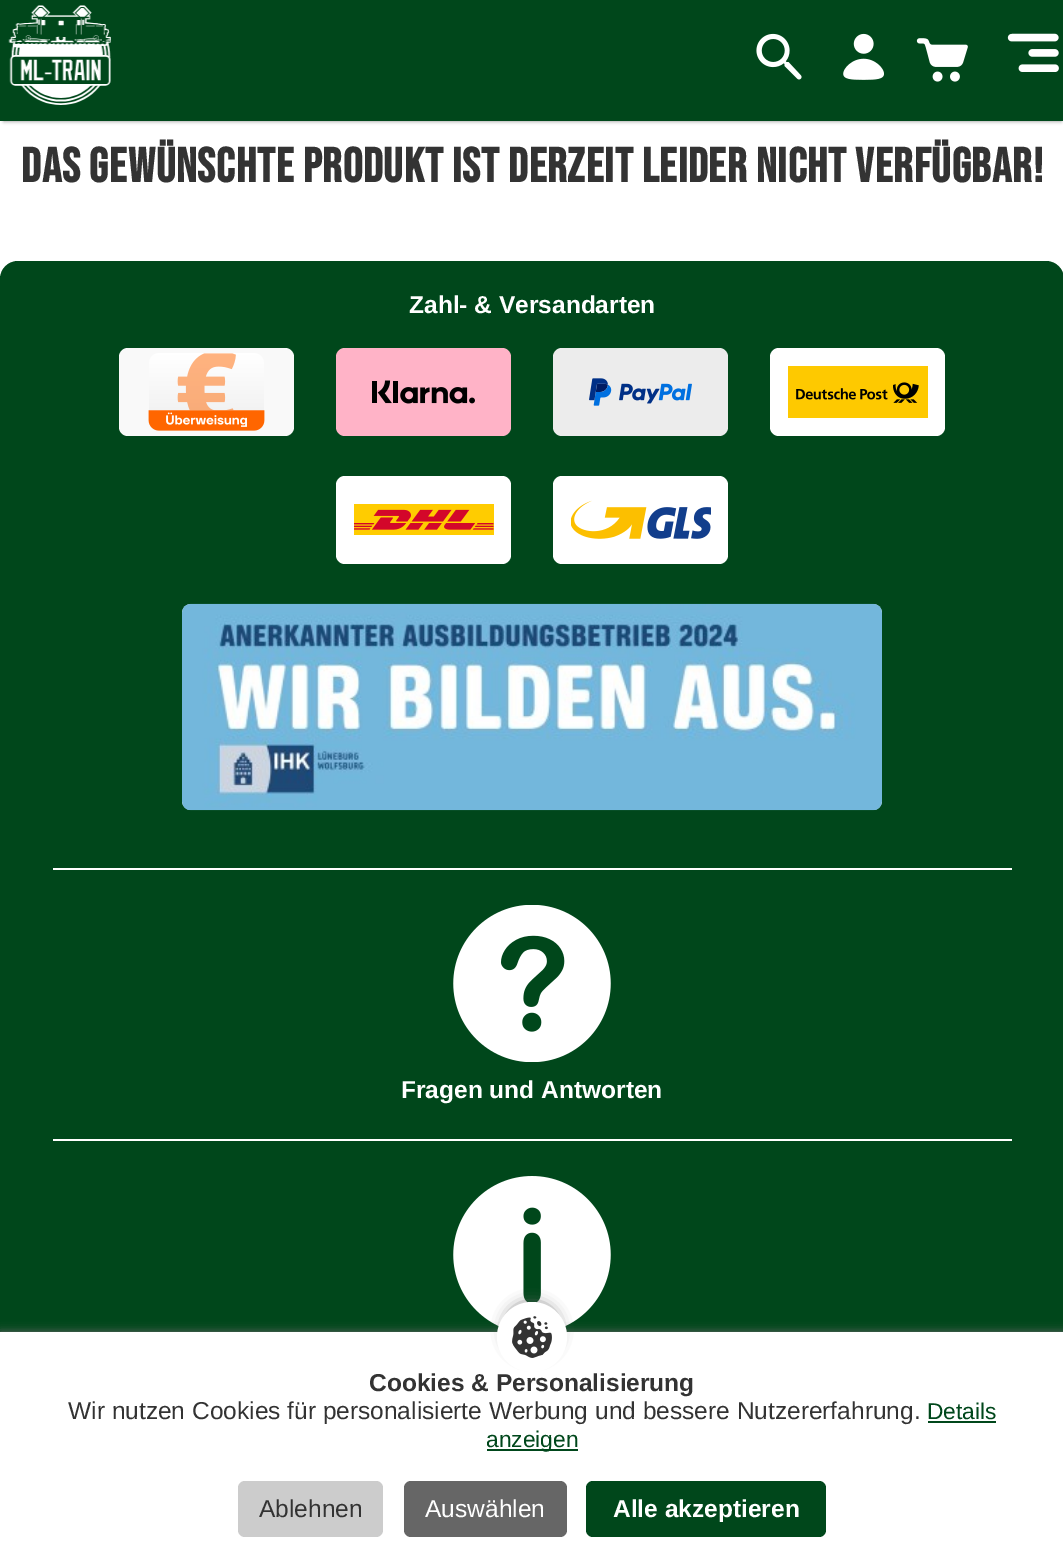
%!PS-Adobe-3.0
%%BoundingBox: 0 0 1063 1568
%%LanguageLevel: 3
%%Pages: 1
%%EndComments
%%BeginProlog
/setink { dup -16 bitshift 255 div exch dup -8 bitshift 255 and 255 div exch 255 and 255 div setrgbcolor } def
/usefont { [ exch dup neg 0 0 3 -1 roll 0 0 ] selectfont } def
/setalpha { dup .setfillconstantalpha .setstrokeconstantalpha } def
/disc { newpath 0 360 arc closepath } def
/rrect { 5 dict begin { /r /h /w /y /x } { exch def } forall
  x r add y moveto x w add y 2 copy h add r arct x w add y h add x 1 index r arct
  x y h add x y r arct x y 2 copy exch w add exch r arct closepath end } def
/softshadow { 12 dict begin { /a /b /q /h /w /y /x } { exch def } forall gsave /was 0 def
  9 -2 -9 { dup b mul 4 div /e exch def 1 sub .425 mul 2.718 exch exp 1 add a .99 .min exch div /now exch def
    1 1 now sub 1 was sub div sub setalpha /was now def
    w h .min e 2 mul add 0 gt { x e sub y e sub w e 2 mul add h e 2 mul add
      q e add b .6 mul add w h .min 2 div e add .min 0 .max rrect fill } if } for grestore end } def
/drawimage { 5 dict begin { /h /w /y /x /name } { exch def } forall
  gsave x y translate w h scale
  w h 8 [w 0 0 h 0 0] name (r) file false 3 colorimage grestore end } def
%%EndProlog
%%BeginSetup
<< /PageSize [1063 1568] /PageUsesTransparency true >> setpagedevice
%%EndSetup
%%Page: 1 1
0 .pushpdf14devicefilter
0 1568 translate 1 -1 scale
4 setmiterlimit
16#FFFFFF setink
0 0 1063 1568 rectfill
16#808080 setink
4 7 1057 114 0 2 1 softshadow
16#00471B setink
0 0 1063 121 rectfill
(img1.raw) 8 5 103 100 drawimage
(img2.raw) 756 33 46 47 drawimage
(img3.raw) 843 33 41 47 drawimage
(img4.raw) 916 38 52 44 drawimage
(img5.raw) 1007 33 52 39 drawimage
/BebasNeue-Bold 48.45 usefont
16#333333 setink
21 182 moveto 0.88 0 (Das gewünschte Produkt ist derzeit leider nicht verfügbar!) ashow
16#00471B setink
0 261 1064 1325 18 rrect fill
/LiberationSans-Bold 24.5 usefont
16#FFFFFF setink
409 313 moveto (Zahl- & Versandarten) show
16#F9F9F9 setink
119 348 175 88 9 rrect fill
16#FFB3C7 setink
336 348 175 88 9 rrect fill
16#ECECEC setink
553 348 175 88 9 rrect fill
16#FFFFFF setink
770 348 175 88 9 rrect fill
(img6.raw) 148 353 117 78 drawimage
(img7.raw) 372 380 103 24 drawimage
(img8.raw) 589 378 103 28 drawimage
(img9.raw) 788 366 140 52 drawimage
336 476 175 88 9 rrect fill
553 476 175 88 9 rrect fill
(img10.raw) 354 504 140 31 drawimage
(img11.raw) 571 500 140 39 drawimage
(img12.raw) 182 603 700 208 drawimage
53 868 959 2 rectfill
(img13.raw) 453 905 158 157 drawimage
401 1098 moveto (Fragen und Antworten) show
53 1139 959 2 rectfill
(img14.raw) 453 1176 158 151 drawimage
16#666666 setink
0 1332 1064 236 0 4.5 1 softshadow
16#FFFFFF setink
0 1332 1063 236 rectfill
16#666666 setink
506 1304 52 52 26 7 1 softshadow
16#FFFFFF setink
532 1337 35 disc fill
(img15.raw) 512 1316 40 42 drawimage
16#333333 setink
369 1391 moveto (Cookies & Personalisierung) show
/LiberationSans-Regular 24.5 usefont
68 1419 moveto (Wir nutzen Cookies für personalisierte Werbung und bessere Nutzererfahrung.) show
/LiberationSans-Regular 22.75 usefont
16#00471B setink
927 1419 moveto (Details) show
928 1421 68 2 rectfill
487 1449 91 2 rectfill
486 1447 moveto (anzeigen) show
16#CCCCCC setink
238 1481 145 56 7 rrect fill
/LiberationSans-Regular 24.5 usefont
16#333333 setink
259 1517 moveto (Ablehnen) show
16#666666 setink
404 1481 163 56 7 rrect fill
16#FFFFFF setink
425 1517 moveto (Auswählen) show
16#00471B setink
586 1481 240 56 7 rrect fill
/LiberationSans-Bold 24.5 usefont
16#FFFFFF setink
613 1517 moveto (Alle akzeptieren) show
.poppdf14devicefilter showpage
%%EOF
